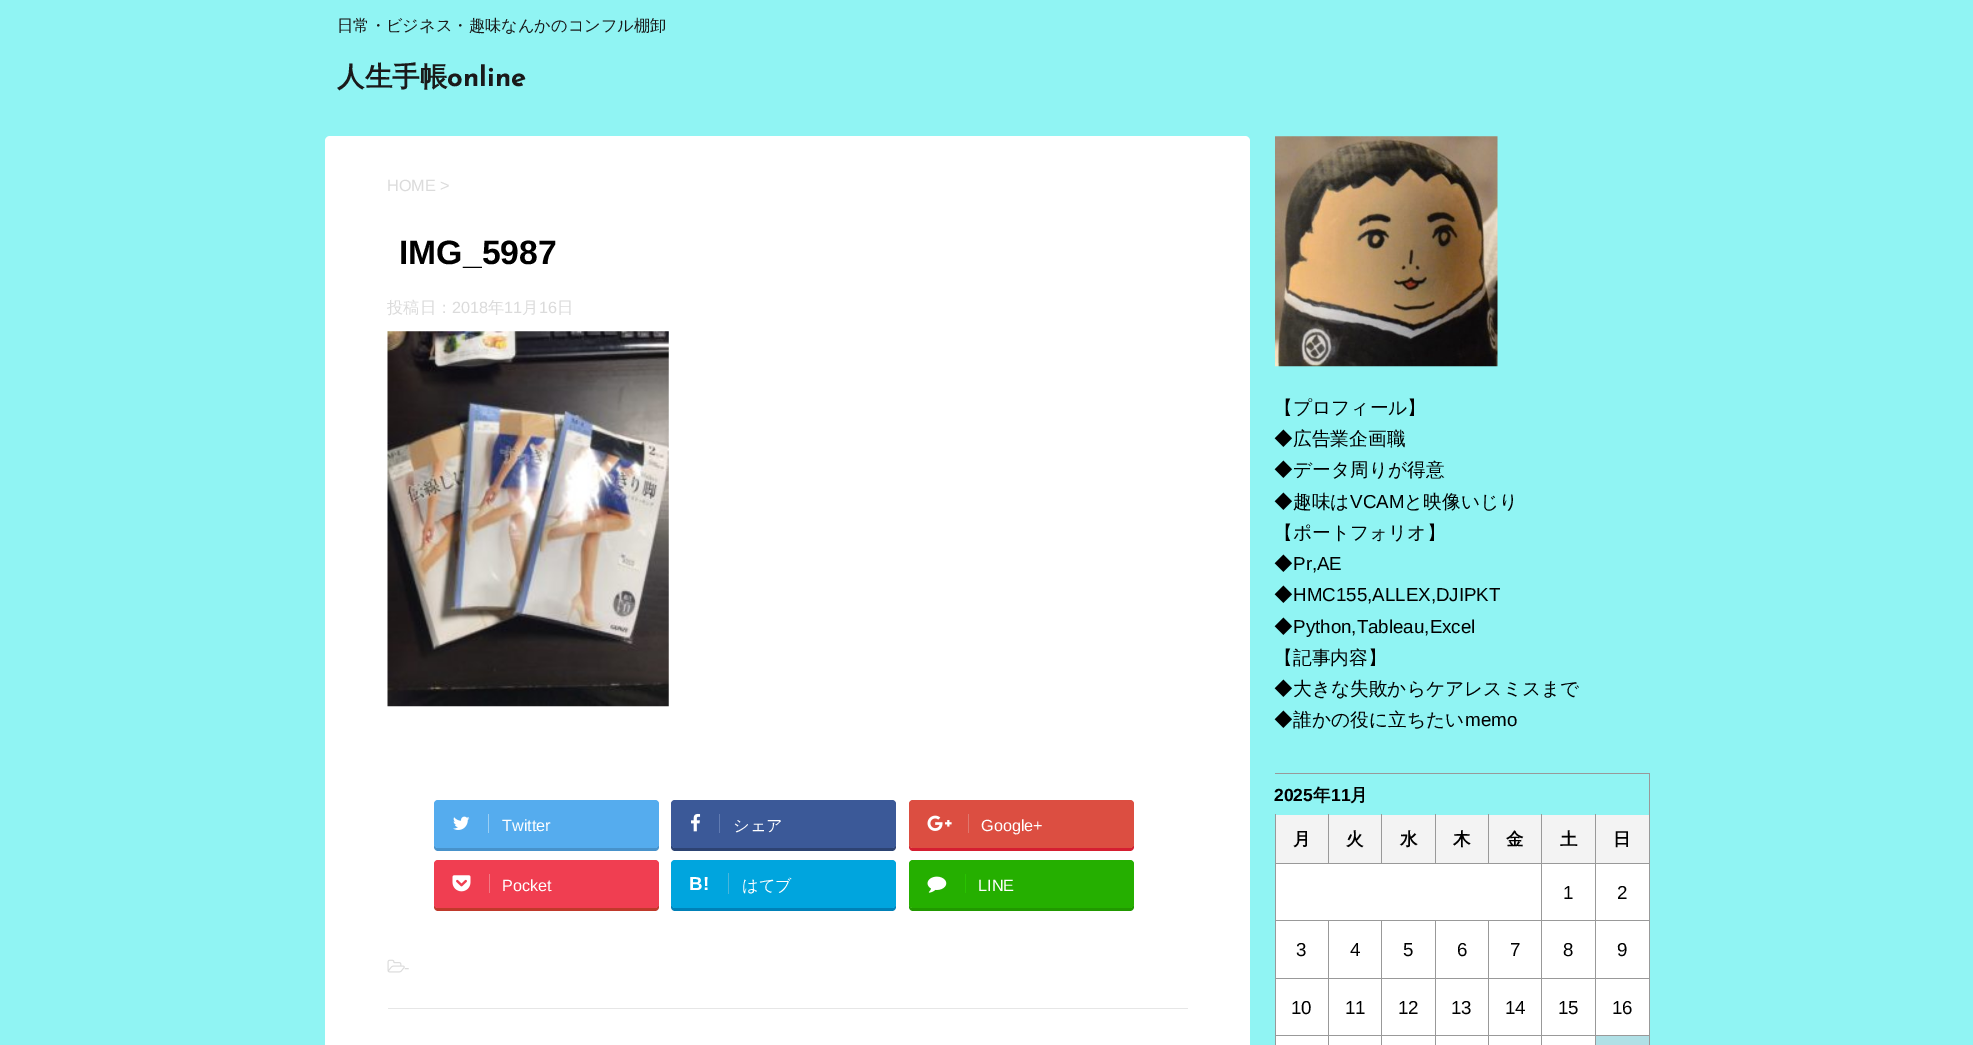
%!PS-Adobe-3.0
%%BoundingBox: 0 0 1973 1045
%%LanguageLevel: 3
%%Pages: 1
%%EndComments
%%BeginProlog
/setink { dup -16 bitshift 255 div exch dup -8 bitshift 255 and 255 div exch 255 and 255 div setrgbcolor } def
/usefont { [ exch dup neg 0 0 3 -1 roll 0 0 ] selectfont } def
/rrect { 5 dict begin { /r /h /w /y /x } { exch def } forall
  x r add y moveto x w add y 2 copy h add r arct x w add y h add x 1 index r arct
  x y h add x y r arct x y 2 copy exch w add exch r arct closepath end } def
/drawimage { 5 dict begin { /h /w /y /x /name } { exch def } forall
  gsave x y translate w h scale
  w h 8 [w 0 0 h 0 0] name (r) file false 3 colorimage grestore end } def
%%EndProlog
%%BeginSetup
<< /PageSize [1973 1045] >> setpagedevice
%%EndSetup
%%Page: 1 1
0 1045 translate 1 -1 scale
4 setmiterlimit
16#90F4F3 setink
0 0 1973 1045 rectfill
/WenQuanYiZenHei-Medium 16.25 usefont
16#1A1A1A setink
337 31 moveto (日常・ビジネス・趣味なんかのコンフル棚卸) show
/WenQuanYiZenHei-Bold 27.5 usefont
337 86 moveto (人生手帳) show
/JosefinSans-Bold 27.5 usefont
447 86 moveto (online) show
16#FFFFFF setink
325 136 925 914 5 rrect fill
/LiberationSans-Regular 16.25 usefont
16#DBDBDB setink
387 191 moveto (HOME >) show
/LiberationSans-Bold 33.75 usefont
16#000000 setink
399 264 moveto (IMG_5987) show
/WenQuanYiZenHei-Medium 16.25 usefont
16#DBDBDB setink
387 313 moveto (投稿日：) show
/LiberationSans-Regular 16.25 usefont
452 313 moveto (2018) show
/WenQuanYiZenHei-Medium 16.25 usefont
488 313 moveto (年) show
/LiberationSans-Regular 16.25 usefont
504 313 moveto (11) show
/WenQuanYiZenHei-Medium 16.25 usefont
522 313 moveto (月) show
/LiberationSans-Regular 16.25 usefont
539 313 moveto (16) show
/WenQuanYiZenHei-Medium 16.25 usefont
557 313 moveto (日) show
(img1.raw) 387 331 282 376 drawimage
16#4892CB setink
434 845 moveto 434 847 lineto 434 849 436 851 438 851 curveto 655 851 lineto 657 851 659 849 659 847 curveto 659 807 lineto 659 844 lineto 659 846 657 848 655 848 curveto 438 848 lineto 436 848 435 847 434 845 curveto closepath fill
16#55ACEE setink
434 800 225 48 4 rrect fill
16#9ACFF4 setink
488 814 1 19 rectfill
(img2.raw) 453 816 17 14 drawimage
/LiberationSans-Regular 16.25 usefont
16#FFFFFF setink
502 831 moveto (Twitter) show
16#2C4373 setink
671 807 moveto 671 847 lineto 671 849 673 851 675 851 curveto 892 851 lineto 894 851 896 849 896 847 curveto 896 845 lineto 895 847 894 848 892 848 curveto 675 848 lineto 673 848 671 846 671 844 curveto closepath fill
16#3B5998 setink
671 800 225 48 4 rrect fill
16#607BB2 setink
719 814 1 19 rectfill
(img3.raw) 691 813 10 19 drawimage
/WenQuanYiZenHei-Medium 16.25 usefont
16#FFFFFF setink
733 831 moveto (シェア) show
16#D51E31 setink
909 845 moveto 909 847 lineto 909 849 911 851 913 851 curveto 1130 851 lineto 1132 851 1134 849 1134 847 curveto 1134 807 lineto 1134 844 lineto 1134 846 1132 848 1130 848 curveto 912 848 lineto 911 848 910 847 909 845 curveto closepath fill
16#DC4E41 setink
909 800 225 48 4 rrect fill
16#E0776D setink
968 814 1 19 rectfill
(img4.raw) 927 815 25 16 drawimage
/LiberationSans-Regular 16.25 usefont
16#FFFFFF setink
981 831 moveto (Google+) show
16#C0392B setink
434 905 moveto 434 907 lineto 434 909 436 911 438 911 curveto 655 911 lineto 657 911 659 909 659 907 curveto 659 867 lineto 659 904 lineto 659 906 657 908 655 908 curveto 438 908 lineto 436 908 435 907 434 905 curveto closepath fill
16#F03E51 setink
434 860 225 48 4 rrect fill
16#F27985 setink
489 874 1 19 rectfill
(img5.raw) 452 875 19 17 drawimage
16#FFFFFF setink
502 891 moveto (Pocket) show
16#0081B8 setink
671 867 moveto 671 907 lineto 671 909 673 911 675 911 curveto 892 911 lineto 894 911 896 909 896 907 curveto 896 905 lineto 895 907 894 908 892 908 curveto 675 908 lineto 673 908 671 906 671 904 curveto closepath fill
16#00A5DE setink
671 860 225 48 4 rrect fill
/LiberationSans-Bold 18.75 usefont
16#FFFFFF setink
689 890 moveto (B!) show
16#48B6DB setink
728 873 1 21 rectfill
/WenQuanYiZenHei-Medium 16.25 usefont
16#FFFFFF setink
742 891 moveto (はてブ) show
16#219900 setink
909 905 moveto 909 907 lineto 909 909 911 911 913 911 curveto 1130 911 lineto 1132 911 1134 909 1134 907 curveto 1134 867 lineto 1134 904 lineto 1134 906 1132 908 1130 908 curveto 912 908 lineto 911 908 910 907 909 905 curveto closepath fill
16#25AF00 setink
909 860 225 48 4 rrect fill
16#29C200 setink
965 874 1 19 rectfill
(img6.raw) 927 876 20 17 drawimage
/LiberationSans-Regular 16.25 usefont
16#FFFFFF setink
978 891 moveto (LINE) show
(img7.raw) 387 959 18 14 drawimage
16#DBDBDB setink
404 973 moveto (-) show
16#E6E6E6 setink
388 1008 800 1 rectfill
(img8.raw) 1275 136 223 231 drawimage
/WenQuanYiZenHei-Medium 18.75 usefont
16#000000 setink
[
    [(【プロフィール】) 1274 414]
    [(◆広告業企画職) 1274 445]
    [(◆データ周りが得意) 1274 476]
    [(◆趣味は) 1274 508]
] { aload pop moveto show } forall
/LiberationSans-Regular 18.75 usefont
1350 508 moveto (VCAM) show
/WenQuanYiZenHei-Medium 18.75 usefont
[
    [(と映像いじり) 1404 508]
    [(【ポートフォリオ】) 1274 539]
    [(◆) 1274 570]
] { aload pop moveto show } forall
/LiberationSans-Regular 18.75 usefont
1293 570 moveto (Pr,AE) show
/WenQuanYiZenHei-Medium 18.75 usefont
1274 601 moveto (◆) show
/LiberationSans-Regular 18.75 usefont
1293 601 moveto (HMC155,ALLEX,DJIPKT) show
/WenQuanYiZenHei-Medium 18.75 usefont
1274 633 moveto (◆) show
/LiberationSans-Regular 18.75 usefont
1293 633 moveto (Python,Tableau,Excel) show
/WenQuanYiZenHei-Medium 18.75 usefont
[
    [(【記事内容】) 1274 664]
    [(◆大きな失敗からケアレスミスまで) 1274 695]
    [(◆誰かの役に立ちたい) 1274 726]
] { aload pop moveto show } forall
/LiberationSans-Regular 18.75 usefont
1465 726 moveto (memo) show
16#999999 setink
1275 773 375 1 rectfill
1649 773 1 272 rectfill
/LiberationSans-Bold 17.5 usefont
16#000000 setink
1274 801 moveto (2025) show
/WenQuanYiZenHei-Bold 17.5 usefont
1313 801 moveto (年) show
/LiberationSans-Bold 17.5 usefont
1331 801 moveto (11) show
/WenQuanYiZenHei-Bold 17.5 usefont
1350 801 moveto (月) show
[
    [1276 815 52 48 16#F3F3F3]
    [1595 1035 1 10 16#999999]
    [1595 1035 55 1 16#999999]
    [1595 978 1 58 16#999999]
    [1595 978 55 1 16#999999]
    [1595 920 1 59 16#999999]
    [1595 920 55 1 16#999999]
    [1595 863 1 58 16#999999]
    [1595 863 55 1 16#999999]
    [1595 814 1 50 16#999999]
    [1276 864 319 56 16#FFFFFF]
    [1489 921 106 57 16#FFFFFF]
    [1489 979 106 56 16#FFFFFF]
    [1489 1036 106 9 16#FFFFFF]
    [1541 1035 1 10 16#999999]
    [1541 1035 55 1 16#999999]
    [1541 978 1 58 16#999999]
    [1541 978 55 1 16#999999]
    [1541 920 1 59 16#999999]
    [1541 920 55 1 16#999999]
    [1541 863 1 58 16#999999]
    [1541 863 55 1 16#999999]
    [1489 815 106 48 16#F3F3F3]
    [1541 814 1 50 16#999999]
    [1488 863 55 1 16#999999]
    [1488 814 1 50 16#999999]
    [1435 863 54 1 16#999999]
    [1435 814 1 50 16#999999]
    [1381 863 55 1 16#999999]
    [1381 814 1 50 16#999999]
    [1328 863 55 1 16#999999]
    [1328 814 1 50 16#999999]
    [1488 1035 1 10 16#999999]
    [1488 1035 55 1 16#999999]
    [1488 978 1 58 16#999999]
    [1488 978 55 1 16#999999]
    [1488 920 1 59 16#999999]
    [1435 1035 1 10 16#999999]
    [1435 1035 54 1 16#999999]
    [1435 978 1 58 16#999999]
    [1435 978 54 1 16#999999]
    [1435 920 1 59 16#999999]
    [1381 1035 1 10 16#999999]
    [1381 1035 55 1 16#999999]
    [1381 978 1 58 16#999999]
    [1381 978 55 1 16#999999]
    [1381 920 1 59 16#999999]
    [1328 1035 1 10 16#999999]
    [1328 1035 55 1 16#999999]
    [1328 978 1 58 16#999999]
    [1328 978 55 1 16#999999]
    [1328 920 1 59 16#999999]
    [1275 1035 1 10 16#999999]
    [1275 1035 54 1 16#999999]
    [1275 978 1 58 16#999999]
    [1275 978 54 1 16#999999]
    [1275 920 1 59 16#999999]
    [1275 920 268 1 16#999999]
    [1275 863 1 58 16#999999]
    [1275 863 54 1 16#999999]
    [1275 814 1 50 16#999999]
] { aload pop setink rectfill } forall
16#000000 setink
1293 845 moveto (月) show
16#F3F3F3 setink
1329 815 52 48 rectfill
16#000000 setink
1346 845 moveto (火) show
16#F3F3F3 setink
1382 815 53 48 rectfill
16#000000 setink
1400 845 moveto (水) show
16#F3F3F3 setink
1436 815 52 48 rectfill
16#000000 setink
[
    [(木) 1453 845]
    [(金) 1506 845]
    [(土) 1560 845]
] { aload pop moveto show } forall
16#F3F3F3 setink
1596 815 53 48 rectfill
16#000000 setink
1613 845 moveto (日) show
16#FFFFFF setink
1596 864 53 56 rectfill
/LiberationSans-Regular 18.75 usefont
16#000000 setink
1617 899 moveto (2) show
1563 899 moveto (1) show
16#FFFFFF setink
1276 921 52 57 rectfill
16#000000 setink
1296 956 moveto (3) show
16#FFFFFF setink
1329 921 52 57 rectfill
16#000000 setink
1350 956 moveto (4) show
16#FFFFFF setink
1382 921 53 57 rectfill
16#000000 setink
1403 956 moveto (5) show
16#FFFFFF setink
1436 921 52 57 rectfill
16#000000 setink
[
    [(6) 1457 956]
    [(7) 1510 956]
    [(8) 1563 956]
] { aload pop moveto show } forall
16#FFFFFF setink
1596 921 53 57 rectfill
16#000000 setink
1617 956 moveto (9) show
16#FFFFFF setink
1276 979 52 56 rectfill
16#000000 setink
1291 1014 moveto (10) show
16#FFFFFF setink
1329 979 52 56 rectfill
16#000000 setink
1345 1014 moveto (11) show
16#FFFFFF setink
1382 979 53 56 rectfill
16#000000 setink
1398 1014 moveto (12) show
16#FFFFFF setink
1436 979 52 56 rectfill
16#000000 setink
[
    [(13) 1451 1014]
    [(14) 1505 1014]
    [(15) 1558 1014]
] { aload pop moveto show } forall
16#FFFFFF setink
1596 979 53 56 rectfill
16#000000 setink
1612 1014 moveto (16) show
[
    [1276 1036 52 9 16#FFFFFF]
    [1329 1036 52 9 16#FFFFFF]
    [1382 1036 53 9 16#FFFFFF]
    [1436 1036 52 9 16#FFFFFF]
    [1596 1036 53 9 16#B0E0E6]
] { aload pop setink rectfill } forall
showpage
%%EOF
